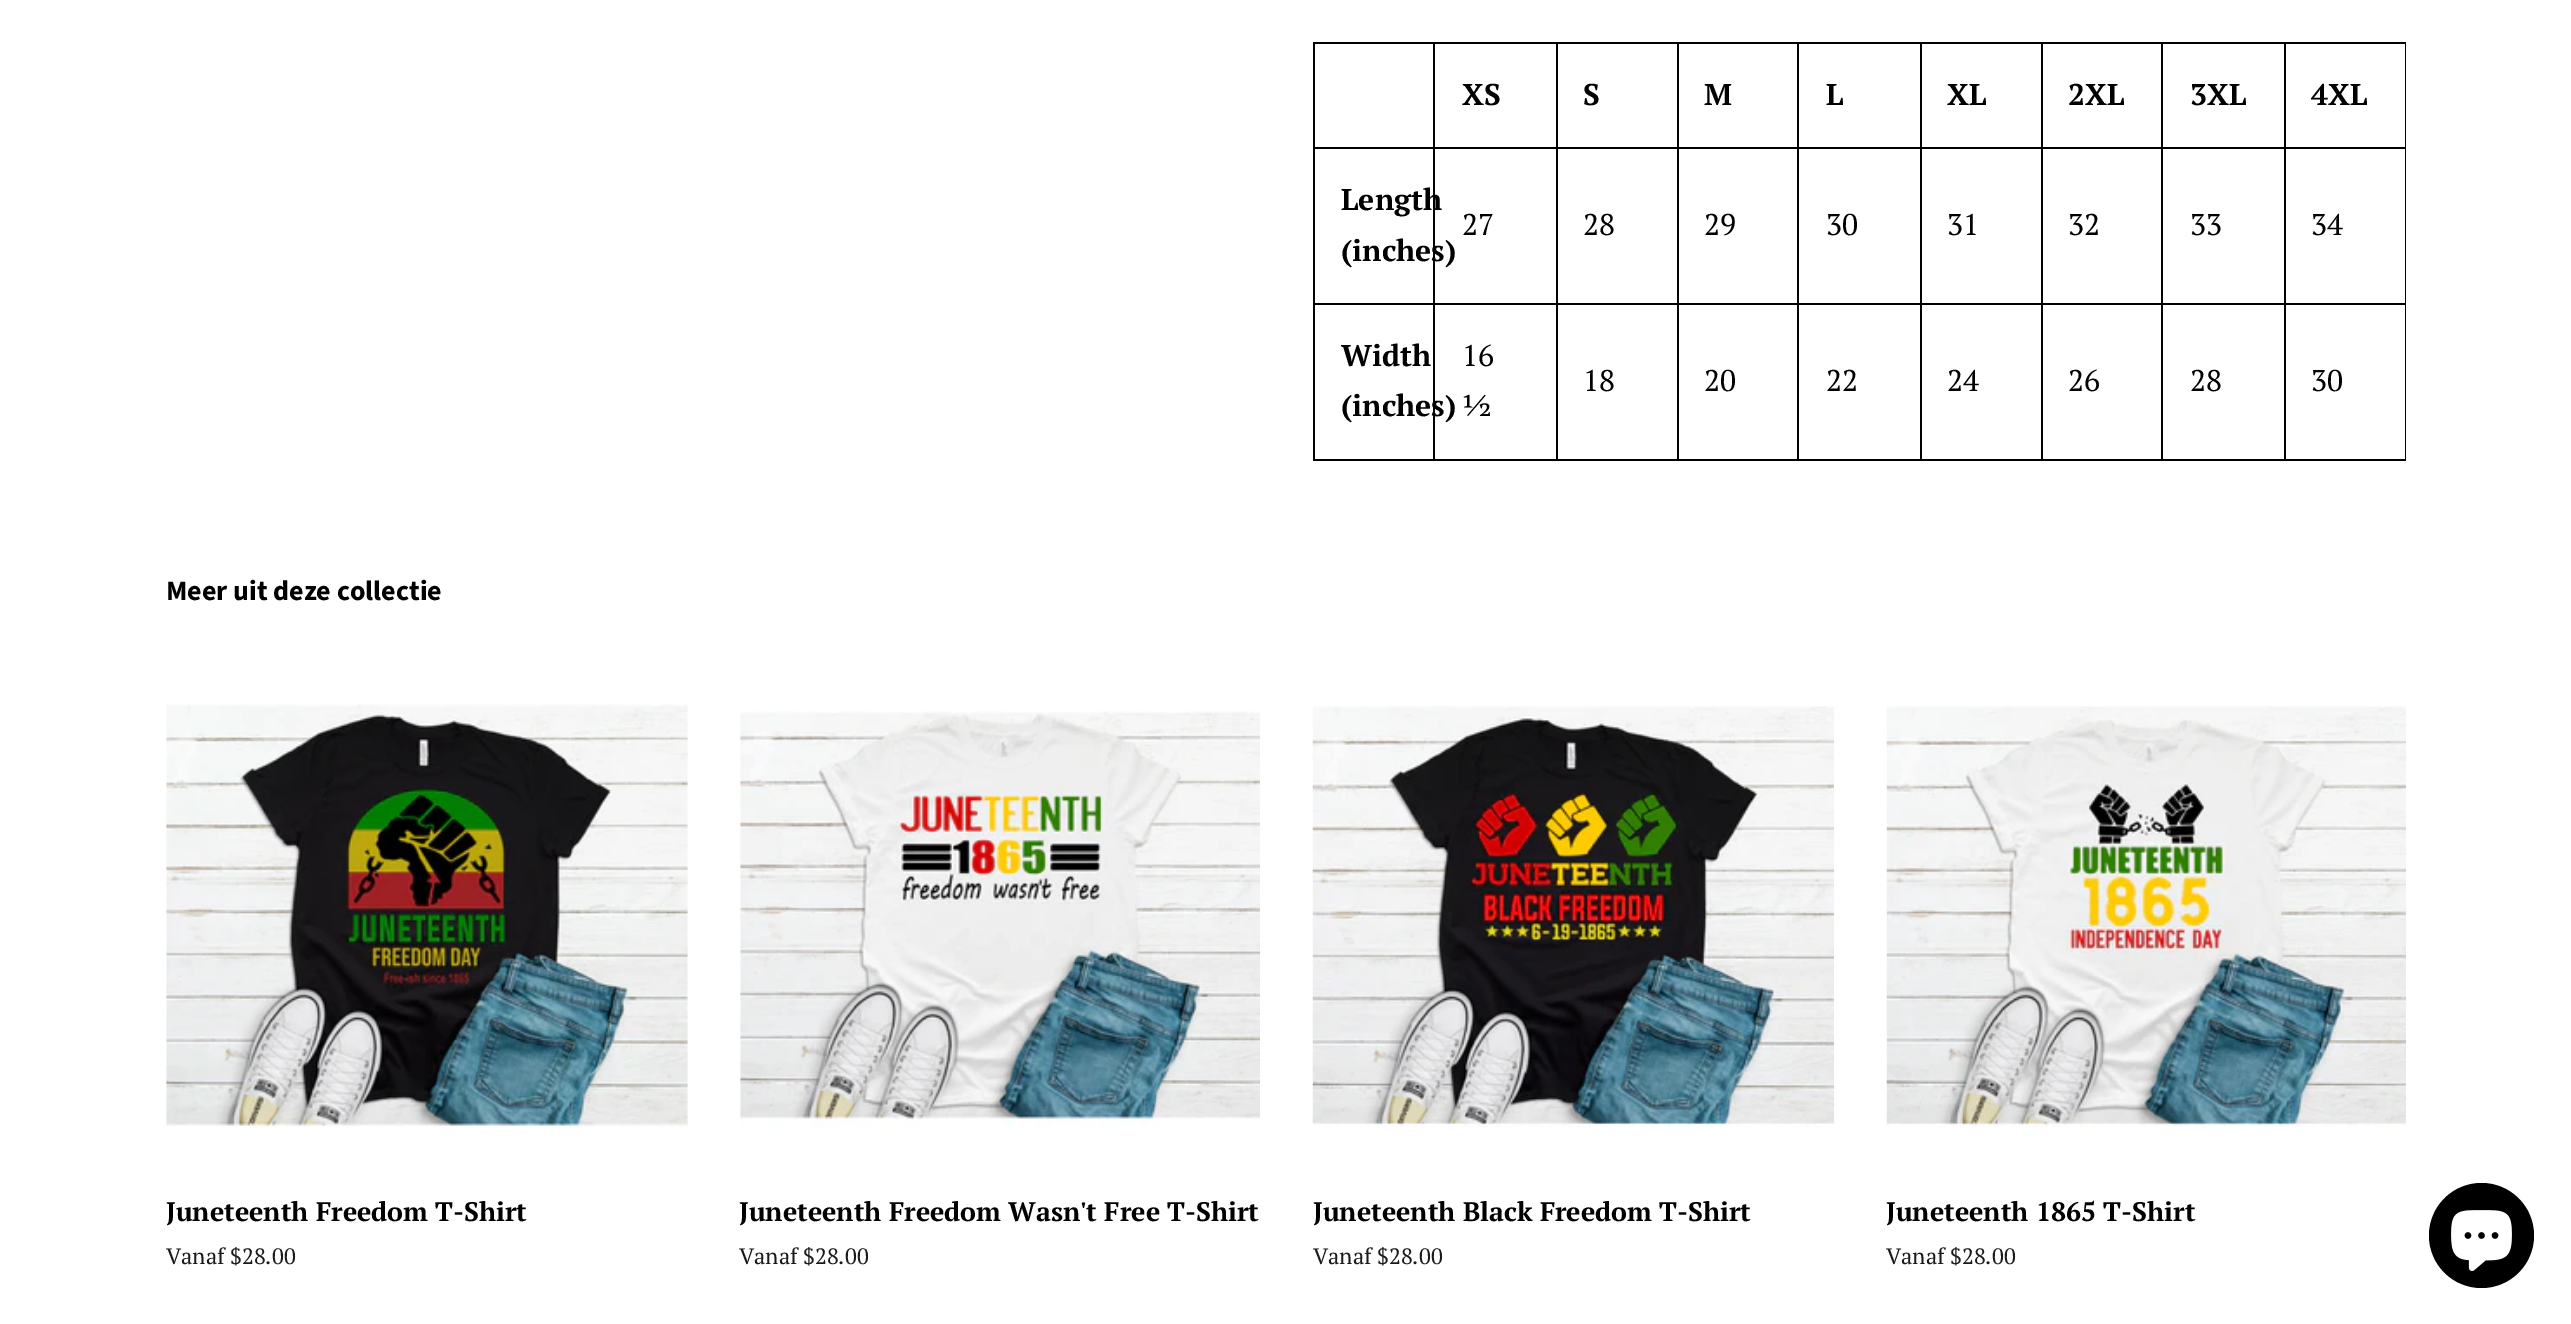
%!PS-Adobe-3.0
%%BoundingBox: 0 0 2571 1324
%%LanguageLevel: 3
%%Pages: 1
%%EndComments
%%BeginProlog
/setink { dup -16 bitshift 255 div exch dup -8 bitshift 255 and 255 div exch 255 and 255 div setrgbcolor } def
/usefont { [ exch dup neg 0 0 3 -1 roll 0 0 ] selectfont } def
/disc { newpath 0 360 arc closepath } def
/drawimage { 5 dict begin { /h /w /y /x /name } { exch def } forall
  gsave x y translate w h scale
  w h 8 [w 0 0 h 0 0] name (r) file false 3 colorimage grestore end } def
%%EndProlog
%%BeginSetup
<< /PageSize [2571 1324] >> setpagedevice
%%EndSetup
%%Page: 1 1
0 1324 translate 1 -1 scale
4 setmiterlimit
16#FFFFFF setink
0 0 2571 1324 rectfill
[
    [2284 42 122 2 16#000000]
    [2284 147 122 2 16#000000]
    [2284 303 122 2 16#000000]
    [2405 303 1 157 16#000000]
    [2284 459 122 2 16#000000]
    [2284 303 2 157 16#000000]
    [2161 303 125 2 16#000000]
    [2284 147 2 158 16#000000]
    [2161 147 125 2 16#000000]
    [2284 42 2 107 16#000000]
    [2161 42 125 2 16#000000]
    [2161 459 125 2 16#000000]
    [2161 303 2 157 16#000000]
    [2041 303 122 2 16#000000]
    [2161 147 2 158 16#000000]
    [2041 147 122 2 16#000000]
    [2161 42 2 107 16#000000]
    [2041 42 122 2 16#000000]
    [2041 459 122 2 16#000000]
    [2041 303 2 157 16#000000]
    [1920 303 122 2 16#000000]
    [2041 147 2 158 16#000000]
    [1920 147 122 2 16#000000]
    [2041 42 2 107 16#000000]
    [1920 42 122 2 16#000000]
    [1920 459 122 2 16#000000]
    [1920 303 2 157 16#000000]
    [1797 303 125 2 16#000000]
    [1920 147 2 158 16#000000]
    [1797 147 125 2 16#000000]
    [1920 42 2 107 16#000000]
    [1797 42 125 2 16#000000]
    [1797 459 125 2 16#000000]
    [1797 303 2 157 16#000000]
    [1677 303 122 2 16#000000]
    [1797 147 2 158 16#000000]
    [1677 147 122 2 16#000000]
    [1797 42 2 107 16#000000]
    [1677 42 122 2 16#000000]
    [1677 459 122 2 16#000000]
    [1677 303 2 157 16#000000]
    [1556 303 122 2 16#000000]
    [1677 147 2 158 16#000000]
    [1556 147 122 2 16#000000]
    [1677 42 2 107 16#000000]
    [1556 42 122 2 16#000000]
    [1556 459 122 2 16#000000]
    [1556 303 2 157 16#000000]
    [1433 303 125 2 16#000000]
    [1556 147 2 158 16#000000]
    [1433 147 125 2 16#000000]
    [1556 42 2 107 16#000000]
    [1433 42 125 2 16#000000]
    [1433 459 125 2 16#000000]
    [1433 303 2 157 16#000000]
    [1313 303 122 2 16#000000]
    [1433 147 2 158 16#000000]
    [1313 147 122 2 16#000000]
    [1433 42 2 107 16#000000]
    [1313 42 122 2 16#000000]
    [1313 459 122 2 16#000000]
    [1313 303 2 157 16#000000]
    [1313 147 2 158 16#000000]
    [1313 42 2 107 16#000000]
] { aload pop setink rectfill } forall
/PTSerif-Bold 30 usefont
[
    [(XS) 1462 105]
    [(S) 1583 105]
    [(M) 1704 105]
    [(L) 1826 105]
    [(XL) 1947 105]
    [(2XL) 2068 105]
    [(3XL) 2190 105]
] { aload pop moveto show } forall
2405 147 1 158 rectfill
2405 42 1 107 rectfill
[
    [(4XL) 2311 105]
    [(Length) 1341 210]
    [(\(inches\)) 1341 261]
] { aload pop moveto show } forall
/PTSerif-Regular 30 usefont
[
    [(27) 1462 235]
    [(28) 1583 235]
    [(29) 1704 235]
    [(30) 1826 235]
    [(31) 1947 235]
    [(32) 2068 235]
    [(33) 2190 235]
    [(34) 2311 235]
] { aload pop moveto show } forall
/PTSerif-Bold 30 usefont
1341 366 moveto (Width) show
1341 416 moveto (\(inches\)) show
/PTSerif-Regular 30 usefont
[
    [(16) 1462 366]
    [(½) 1462 416]
    [(18) 1583 391]
    [(20) 1704 391]
    [(22) 1826 391]
    [(24) 1947 391]
    [(26) 2068 391]
    [(28) 2190 391]
    [(30) 2311 391]
] { aload pop moveto show } forall
/SourceSansPro-Bold 28 usefont
166 600 moveto (Meer uit deze collectie) show
(img1.raw) 166 704 522 424 drawimage
/PTSerif-Bold 26.75 usefont
166 1221 moveto (Juneteenth Freedom T-Shirt) show
/PTSerif-Regular 22.25 usefont
16#1A1A1A setink
166 1264 moveto (Vanaf $28.00) show
(img2.raw) 740 711 520 416 drawimage
/PTSerif-Bold 26.75 usefont
16#000000 setink
739 1221 moveto (Juneteenth Freedom Wasn't Free T-Shirt) show
/PTSerif-Regular 22.25 usefont
16#1A1A1A setink
739 1264 moveto (Vanaf $28.00) show
(img3.raw) 1312 706 522 421 drawimage
/PTSerif-Bold 26.75 usefont
16#000000 setink
1313 1221 moveto (Juneteenth Black Freedom T-Shirt) show
/PTSerif-Regular 22.25 usefont
16#1A1A1A setink
1313 1264 moveto (Vanaf $28.00) show
(img4.raw) 1886 706 521 421 drawimage
/PTSerif-Bold 26.75 usefont
16#000000 setink
1886 1221 moveto (Juneteenth 1865 T-Shirt) show
/PTSerif-Regular 22.25 usefont
16#1A1A1A setink
1886 1264 moveto (Vanaf $28.00) show
16#000000 setink
2481.5 1235.5 52.5 disc fill
(img5.raw) 2451 1210 61 61 drawimage
showpage
%%EOF
